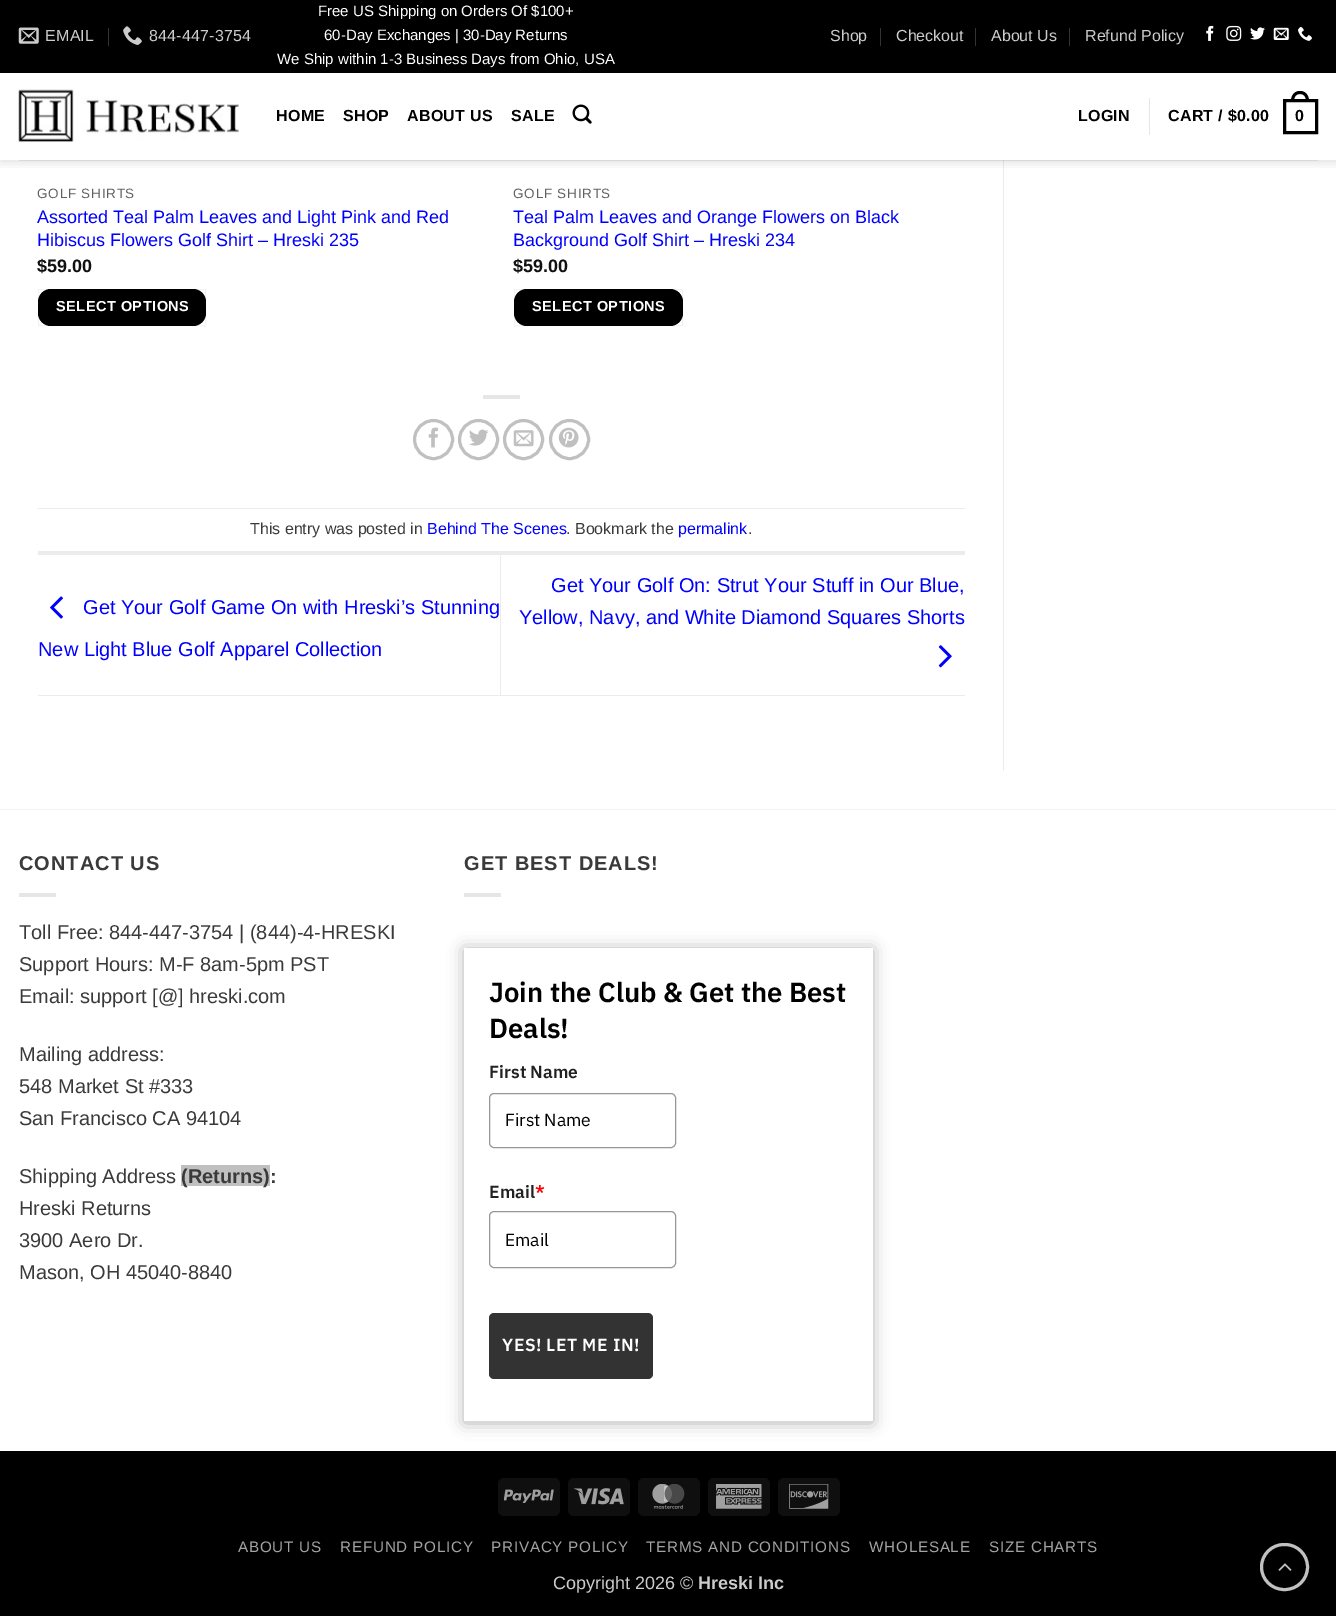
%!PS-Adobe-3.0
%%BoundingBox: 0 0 1336 1616
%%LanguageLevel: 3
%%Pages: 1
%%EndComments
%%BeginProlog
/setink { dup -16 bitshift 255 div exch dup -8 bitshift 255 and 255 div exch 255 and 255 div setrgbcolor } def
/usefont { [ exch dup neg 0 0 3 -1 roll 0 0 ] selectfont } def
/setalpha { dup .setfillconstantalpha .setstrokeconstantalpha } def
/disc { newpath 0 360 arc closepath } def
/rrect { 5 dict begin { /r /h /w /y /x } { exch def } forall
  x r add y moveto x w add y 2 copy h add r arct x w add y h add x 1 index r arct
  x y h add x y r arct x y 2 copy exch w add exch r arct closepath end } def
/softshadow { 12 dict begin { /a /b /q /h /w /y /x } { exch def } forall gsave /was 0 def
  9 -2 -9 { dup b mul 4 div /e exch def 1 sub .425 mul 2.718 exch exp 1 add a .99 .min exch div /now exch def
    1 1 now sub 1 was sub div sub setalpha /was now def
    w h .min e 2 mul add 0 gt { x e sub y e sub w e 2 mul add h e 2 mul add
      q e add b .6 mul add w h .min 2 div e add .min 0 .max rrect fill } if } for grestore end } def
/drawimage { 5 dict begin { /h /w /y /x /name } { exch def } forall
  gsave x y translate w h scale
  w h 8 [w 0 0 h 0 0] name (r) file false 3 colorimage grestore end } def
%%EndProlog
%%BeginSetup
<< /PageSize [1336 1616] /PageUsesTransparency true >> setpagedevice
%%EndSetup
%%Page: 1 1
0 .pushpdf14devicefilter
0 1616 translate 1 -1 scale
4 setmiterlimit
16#FFFFFF setink
0 0 1336 1616 rectfill
16#ECECEC setink
1003 160 1 611 rectfill
gsave
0 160 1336 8 rectclip
16#000000 setink
1 1 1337 160 0 6 0.15 softshadow
grestore
16#000000 setink
0 0 1336 73 rectfill
(img1.raw) 18 27 21 17 drawimage
/LiberationSans-Regular 16 usefont
16#CCCCCC setink
45 41 moveto 0.25 0 (EMAIL) ashow
16#333333 setink
108 28 1 18 rectfill
(img2.raw) 123 26 19 19 drawimage
16#CCCCCC setink
149 41 moveto 0.25 0 (844-447-3754) ashow
/LiberationSans-Regular 15 usefont
16#FFFFFF setink
[
    [(Free US Shipping on Orders Of $100+) 318 16]
    [(60-Day Exchanges | 30-Day Returns) 324 40]
    [(We Ship within 1-3 Business Days from Ohio, USA) 277 64]
] { aload pop moveto show } forall
/LiberationSans-Regular 16 usefont
16#CCCCCC setink
830 41 moveto (Shop) show
16#333333 setink
880 28 1 18 rectfill
16#CCCCCC setink
896 41 moveto (Checkout) show
16#333333 setink
975 28 1 18 rectfill
16#CCCCCC setink
991 41 moveto (About Us) show
16#333333 setink
1069 28 1 18 rectfill
16#CCCCCC setink
1085 41 moveto (Refund Policy) show
(img3.raw) 1206 25 8 16 drawimage
(img4.raw) 1226 25 16 16 drawimage
(img5.raw) 1250 27 15 13 drawimage
(img6.raw) 1273 27 16 13 drawimage
(img7.raw) 1298 26 14 15 drawimage
(img8.raw) 18 89 221 53 drawimage
/LiberationSans-Bold 16 usefont
16#000000 setink
276 121 moveto 0.25 0 (HOME) ashow
343 121 moveto 0.25 0 (SHOP) ashow
407 121 moveto 0.25 0 (ABOUT US) ashow
511 121 moveto 0.25 0 (SALE) ashow
(img9.raw) 572 104 20 20 drawimage
1078 121 moveto 0.25 0 (LOGIN) ashow
16#E6E6E6 setink
1149 98 1 37 rectfill
16#000000 setink
1168 121 moveto 0.25 0 (CART / $0.00) ashow
3 setlinewidth
1284.5 100.5 32 32 rectstroke
1300 91 moveto 1306 91 1309 96 1309 101 curveto 1291 101 lineto 1291 96 1294 91 1300 91 curveto closepath 1300 94 moveto 1304.5 94 1306 97.5 1306 101 curveto 1294 101 lineto 1294 97.5 1295.5 94 1300 94 curveto closepath eofill
1295 121 moveto 0.25 0 (0) ashow
0.1 setalpha
16#3A3A3A setink
19 160 1299 1 rectfill
/LiberationSans-Regular 13.5 usefont
1 setalpha
16#616161 setink
37 198 moveto 0.75 0 (GOLF SHIRTS) ashow
/LiberationSans-Regular 18 usefont
16#0000FF setink
37 223 moveto (Assorted Teal Palm Leaves and Light Pink and Red) show
37 246 moveto (Hibiscus Flowers Golf Shirt – Hreski 235) show
/LiberationSans-Bold 18 usefont
16#111111 setink
37 272 moveto ($59.00) show
16#000000 setink
38 289 168 37 13 rrect fill
0.05 setalpha
1 setlinewidth
38.5 289.5 167 36 rectstroke
/LiberationSans-Bold 14.5 usefont
1 setalpha
16#FFFFFF setink
56 311 moveto 0.5 0 (SELECT OPTIONS) ashow
/LiberationSans-Regular 13.5 usefont
16#616161 setink
513 198 moveto 0.75 0 (GOLF SHIRTS) ashow
/LiberationSans-Regular 18 usefont
16#0000FF setink
513 223 moveto (Teal Palm Leaves and Orange Flowers on Black) show
513 246 moveto (Background Golf Shirt – Hreski 234) show
/LiberationSans-Bold 18 usefont
16#111111 setink
513 272 moveto ($59.00) show
16#000000 setink
514 289 169 37 13 rrect fill
0.05 setalpha
514.5 289.5 168 36 rectstroke
/LiberationSans-Bold 14.5 usefont
1 setalpha
16#FFFFFF setink
532 311 moveto 0.5 0 (SELECT OPTIONS) ashow
16#E6E6E6 setink
483 395 37 4 rectfill
16#C0C0C0 setink
3 setlinewidth
433.5 439.5 19 disc stroke
(img10.raw) 428 427 10 21 drawimage
478.5 439.5 19 disc stroke
(img11.raw) 469 429 20 17 drawimage
523.5 439.5 19 disc stroke
(img12.raw) 513 430 21 17 drawimage
569.5 439.5 19 disc stroke
(img13.raw) 558 427 21 21 drawimage
16#ECECEC setink
38 508 927 1 rectfill
38 551 927 4 rectfill
/LiberationSans-Regular 16 usefont
16#3A3A3A setink
250 534 moveto (This entry was posted in) show
16#0000FF setink
427 534 moveto (Behind The Scenes) show
16#3A3A3A setink
566 534 moveto (. Bookmark the) show
16#0000FF setink
678 534 moveto (permalink) show
16#3A3A3A setink
748 534 moveto (.) show
16#ECECEC setink
38 695 927 1 rectfill
(img14.raw) 50 596 13 23 drawimage
/LiberationSans-Regular 20 usefont
16#0000FF setink
83 614 moveto (Get Your Golf Game On with Hreski’s Stunning) show
38 656 moveto (New Light Blue Golf Apparel Collection) show
16#ECECEC setink
500 555 1 140 rectfill
16#0000FF setink
551 592 moveto (Get Your Golf On: Strut Your Stuff in Our Blue,) show
519 624 moveto (Yellow, Navy, and White Diamond Squares Shorts) show
(img15.raw) 938 645 14 23 drawimage
16#F2F2F2 setink
0 809 1336 1 rectfill
/LiberationSans-Bold 20 usefont
16#3A3A3A setink
19 870 moveto 1 0 (CONTACT US) ashow
16#E6E6E6 setink
19 893 37 4 rectfill
/LiberationSans-Regular 20 usefont
16#3A3A3A setink
[
    [(Toll Free: 844-447-3754 | \(844\)-4-HRESKI) 19 939]
    [(Support Hours: M-F 8am-5pm PST) 19 971]
    [(Email: support [@] hreski.com) 19 1003]
    [(Mailing address:) 19 1061]
    [(548 Market St #333) 19 1093]
    [(San Francisco CA 94104) 19 1125]
    [(Shipping Address) 19 1183]
] { aload pop moveto show } forall
16#C0C0C0 setink
181 1165 89 21 rectfill
/LiberationSans-Bold 20 usefont
16#3A3A3A setink
181 1183 moveto (\(Returns\):) show
/LiberationSans-Regular 20 usefont
[
    [(Hreski Returns) 19 1215]
    [(3900 Aero Dr.) 19 1247]
    [(Mason, OH 45040-8840) 19 1279]
] { aload pop moveto show } forall
/LiberationSans-Bold 20 usefont
464 870 moveto 1 0 (GET BEST DEALS!) ashow
16#E6E6E6 setink
464 893 37 4 rectfill
16#000000 setink
464 949 409 474 0 8 0.3 softshadow
16#FFFFFF setink
464 948 409 473 rectfill
/IBMPlexSans-SemiBold 27.5 usefont
16#000000 setink
489 1002 moveto (Join the Club & Get the Best) show
489 1038 moveto (Deals!) show
/IBMPlexSans-SemiBold 17.5 usefont
16#222222 setink
489 1078 moveto (First Name) show
16#979797 setink
1 setlinewidth
489.5 1093.5 186 54 4.5 rrect stroke
/IBMPlexSans-Regular 17.5 usefont
16#000000 setink
505 1126 moveto (First Name) show
/IBMPlexSans-SemiBold 17.5 usefont
16#222222 setink
489 1198 moveto (Email) show
16#FF0000 setink
535 1198 moveto (*) show
16#979797 setink
489.5 1211.5 186 56 4.5 rrect stroke
/IBMPlexSans-Regular 17.5 usefont
16#000000 setink
505 1246 moveto (Email) show
16#333333 setink
489 1313 164 66 5 rrect fill
/IBMPlexSans-SemiBold 17.5 usefont
16#FFFFFF setink
502 1351 moveto 0.5 0 (YES! LET ME IN!) ashow
16#000000 setink
0 1451 1336 165 rectfill
16#0F0F0F setink
498 1478 62 38 6 rrect fill
(img16.raw) 504 1489 50 14 drawimage
568 1478 62 38 6 rrect fill
(img17.raw) 574 1488 50 17 drawimage
638 1478 62 38 6 rrect fill
(img18.raw) 652 1484 33 25 drawimage
708 1478 62 38 6 rrect fill
(img19.raw) 716 1484 46 25 drawimage
778 1478 62 38 6 rrect fill
(img20.raw) 789 1484 40 25 drawimage
/LiberationSans-Regular 15.25 usefont
16#A3A3A3 setink
238 1552 moveto 0.75 0 (ABOUT US) ashow
340 1552 moveto 0.75 0 (REFUND POLICY) ashow
491 1552 moveto 0.75 0 (PRIVACY POLICY) ashow
646 1552 moveto 0.75 0 (TERMS AND CONDITIONS) ashow
869 1552 moveto 0.75 0 (WHOLESALE) ashow
989 1552 moveto 0.75 0 (SIZE CHARTS) ashow
/LiberationSans-Regular 18 usefont
16#CCCCCC setink
553 1589 moveto (Copyright 2026 ©) show
/LiberationSans-Bold 18 usefont
698 1589 moveto (Hreski Inc) show
16#C0C0C0 setink
3 setlinewidth
1261.5 1544.5 46 45 22.5 rrect stroke
(img21.raw) 1278 1563 14 8 drawimage
.poppdf14devicefilter showpage
%%EOF
